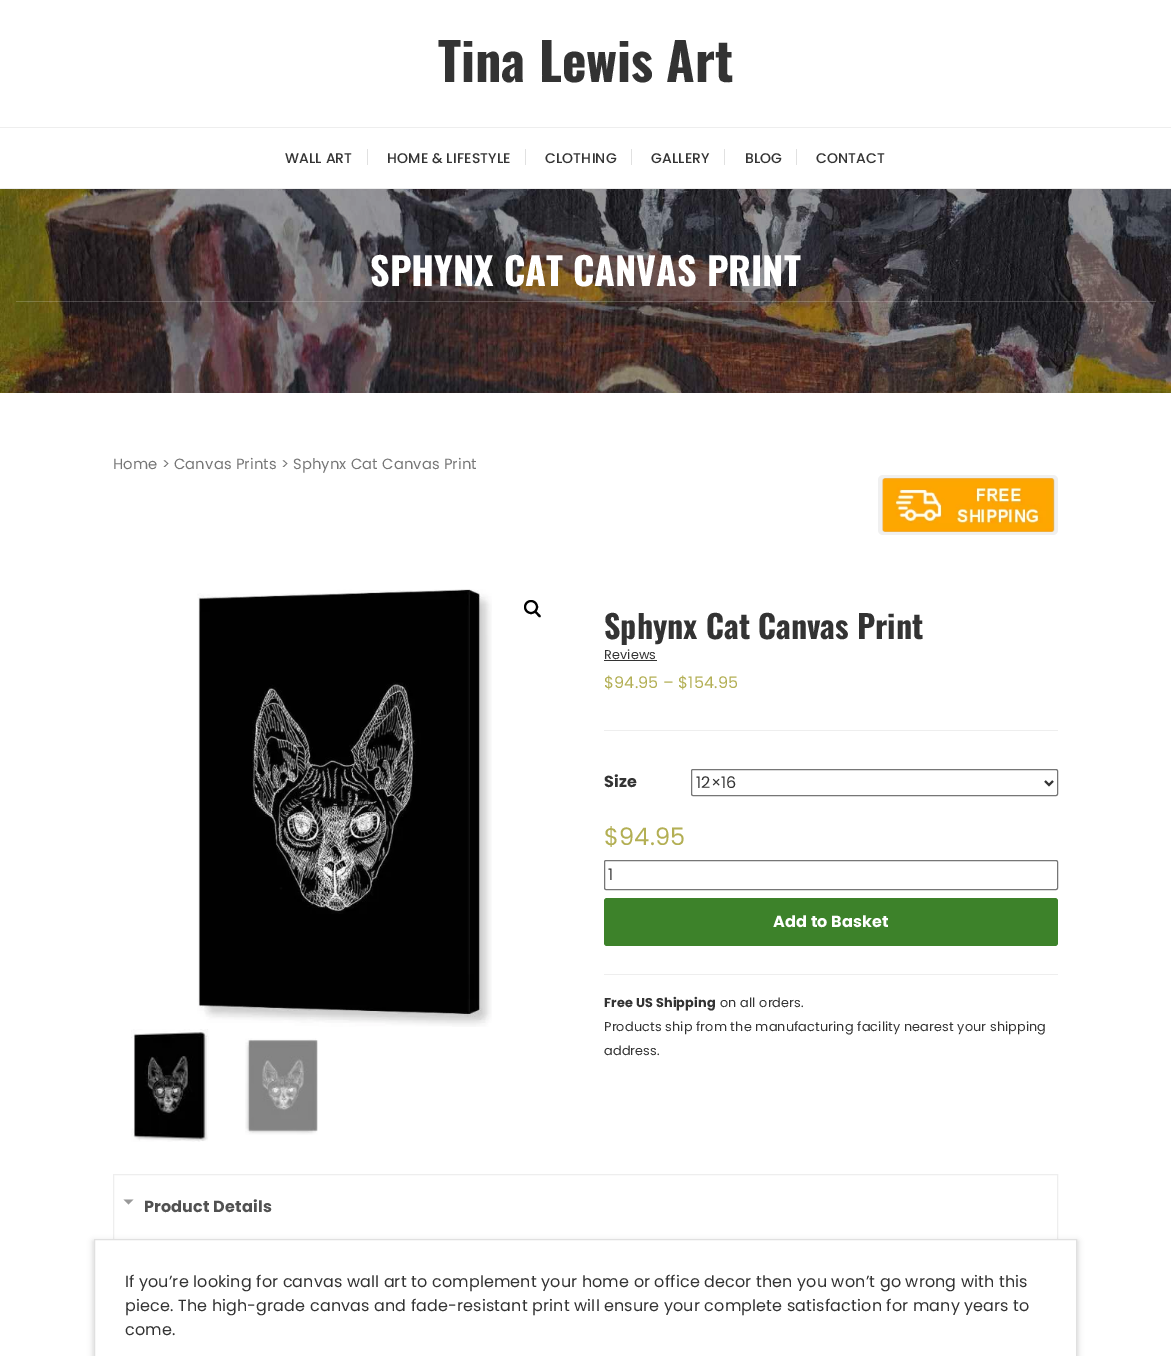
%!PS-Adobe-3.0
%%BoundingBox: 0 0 1171 1356
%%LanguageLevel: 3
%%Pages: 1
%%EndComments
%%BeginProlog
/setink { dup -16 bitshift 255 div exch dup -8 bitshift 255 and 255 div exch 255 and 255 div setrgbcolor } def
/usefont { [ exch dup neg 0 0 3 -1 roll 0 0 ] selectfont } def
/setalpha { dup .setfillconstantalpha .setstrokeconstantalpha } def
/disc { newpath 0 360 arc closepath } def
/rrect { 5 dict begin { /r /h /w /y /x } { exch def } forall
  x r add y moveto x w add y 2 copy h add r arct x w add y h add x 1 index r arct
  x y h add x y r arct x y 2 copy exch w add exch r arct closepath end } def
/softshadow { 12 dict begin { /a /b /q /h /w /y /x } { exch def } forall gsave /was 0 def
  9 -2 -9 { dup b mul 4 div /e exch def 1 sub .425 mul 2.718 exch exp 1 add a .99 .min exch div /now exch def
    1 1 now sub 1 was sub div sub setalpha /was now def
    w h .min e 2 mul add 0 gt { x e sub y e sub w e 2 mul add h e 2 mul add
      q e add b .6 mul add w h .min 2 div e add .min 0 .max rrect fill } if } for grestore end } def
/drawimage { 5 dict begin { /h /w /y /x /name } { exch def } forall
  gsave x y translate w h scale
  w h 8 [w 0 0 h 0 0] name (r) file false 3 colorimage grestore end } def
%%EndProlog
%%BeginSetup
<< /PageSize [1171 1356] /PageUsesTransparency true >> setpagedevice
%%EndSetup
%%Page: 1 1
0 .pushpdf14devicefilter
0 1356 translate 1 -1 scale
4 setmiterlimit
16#FFFFFF setink
0 0 1171 1356 rectfill
/Oswald-Bold 52 usefont
16#333333 setink
438 82 moveto (Tina Lewis Art) show
16#EEEEEE setink
0 127 1171 1 rectfill
0 188 1171 1 rectfill
/Poppins-Medium 14 usefont
16#333333 setink
285 163 moveto 0.15 0 (WALL ART) ashow
16#E1E1E1 setink
367 149 1 16 rectfill
16#333333 setink
387 163 moveto 0.15 0 (HOME & LIFESTYLE) ashow
16#E1E1E1 setink
525 149 1 16 rectfill
16#333333 setink
545 163 moveto 0.15 0 (CLOTHING) ashow
16#E1E1E1 setink
631 149 1 16 rectfill
16#333333 setink
651 163 moveto 0.15 0 (GALLERY) ashow
16#E1E1E1 setink
724 149 1 16 rectfill
16#333333 setink
745 163 moveto 0.15 0 (BLOG) ashow
16#E1E1E1 setink
796 149 1 16 rectfill
16#333333 setink
816 163 moveto 0.15 0 (CONTACT) ashow
(img1.raw) 0 189 1171 204 drawimage
0.2 setalpha
16#FFFFFF setink
16 301 1140 1 rectfill
/Oswald-Bold 38 usefont
1 setalpha
370 286 moveto (SPHYNX CAT CANVAS PRINT) show
/Poppins-Regular 14.75 usefont
16#767676 setink
113 469 moveto 0.15 0 (Home > Canvas Prints > Sphynx Cat Canvas Print) ashow
16#F0F0F0 setink
878 475 180 60 5 rrect fill
(img2.raw) 882 478 173 54 drawimage
(img3.raw) 197 589 295 438 drawimage
16#000000 setink
2 setlinewidth
531 607 6 disc stroke
535 611 moveto 536 610 537.5 612.5 538.5 613.5 curveto 539 614 541.5 615.5 540.5 617 curveto 539 618 537.5 615.5 537 615 curveto 536.5 614 533.5 612.5 535 611 curveto closepath fill
(img4.raw) 131 1029 78 113 drawimage
(img5.raw) 245 1038 73 97 drawimage
/Oswald-Bold 32 usefont
16#333333 setink
604 639 moveto (Sphynx Cat Canvas Print) show
/Poppins-Regular 12.8 usefont
604 659 moveto 0.15 0 (Reviews) ashow
604 660 53 1 rectfill
/Poppins-Regular 16 usefont
16#B3AF54 setink
604 688 moveto 0.15 0 ($94.95 – $154.95) ashow
16#EEEEEE setink
604 730 454 1 rectfill
/Poppins-Bold 16 usefont
16#333333 setink
604 787 moveto 0.15 0 (Size) ashow
16#767676 setink
1 setlinewidth
691.5 769.5 366 26 1.5 rrect stroke
16#333333 setink
2 setlinewidth
1045 781 moveto 1049 785 lineto 1053 781 lineto stroke
/Poppins-Regular 16 usefont
696 788 moveto 0.15 0 (12×16) ashow
/Poppins-Regular 24 usefont
16#B3AF54 setink
604 845 moveto 0.15 0 ($94.95) ashow
16#767676 setink
1 setlinewidth
604.5 860.5 453 29 1.5 rrect stroke
/Poppins-Regular 16 usefont
16#333333 setink
608 880 moveto 0.15 0 (1) ashow
16#3D822A setink
604 898 454 48 3 rrect fill
/Poppins-Bold 16 usefont
16#FFFFFF setink
773 927 moveto 0.15 0 (Add to Basket) ashow
16#EEEEEE setink
604 974 454 1 rectfill
/Poppins-Bold 12.8 usefont
16#333333 setink
604 1007 moveto 0.15 0 (Free US Shipping) ashow
/Poppins-Regular 12.8 usefont
720 1007 moveto 0.15 0 (on all orders.) ashow
604 1031 moveto 0.15 0 (Products ship from the manufacturing facility nearest your shipping) ashow
604 1055 moveto 0.15 0 (address.) ashow
16#EEEEEE setink
113.5 1174.5 944 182 rectstroke
16#999999 setink
123.5 1199.5 moveto 133.5 1199.5 lineto 128.5 1204.5 lineto closepath fill
/Poppins-Bold 16 usefont
16#515151 setink
144 1212 moveto 0.15 0 (Product Details) ashow
16#000000 setink
93 1241 985 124 0 3 0.16 softshadow
16#FFFFFF setink
94.5 1239.5 moveto 1076.5 1239.5 lineto 1076.5 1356.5 lineto 94.5 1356.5 lineto closepath gsave fill grestore
16#E0E0E0 setink
stroke
/Poppins-Regular 16 usefont
16#333333 setink
125 1287 moveto 0.15 0 (If you’re looking for canvas wall art to complement your home or office decor then you won’t go wrong with this) ashow
125 1311 moveto 0.15 0 (piece. The high-grade canvas and fade-resistant print will ensure your complete satisfaction for many years to) ashow
125 1335 moveto 0.15 0 (come.) ashow
.poppdf14devicefilter showpage
%%EOF
